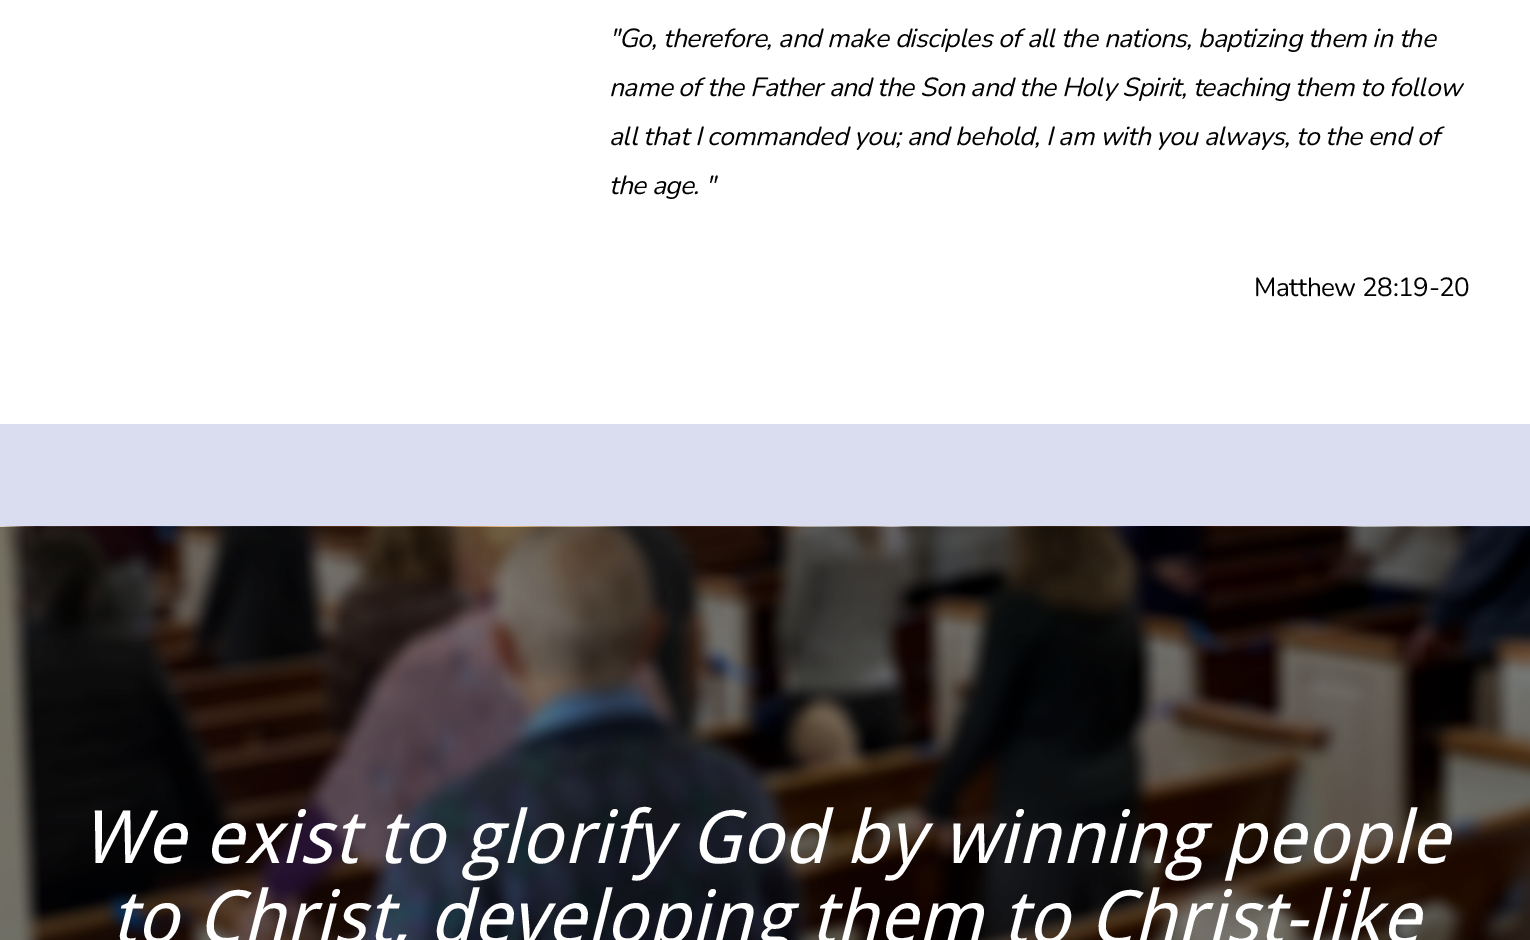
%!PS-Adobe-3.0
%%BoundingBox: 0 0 1530 940
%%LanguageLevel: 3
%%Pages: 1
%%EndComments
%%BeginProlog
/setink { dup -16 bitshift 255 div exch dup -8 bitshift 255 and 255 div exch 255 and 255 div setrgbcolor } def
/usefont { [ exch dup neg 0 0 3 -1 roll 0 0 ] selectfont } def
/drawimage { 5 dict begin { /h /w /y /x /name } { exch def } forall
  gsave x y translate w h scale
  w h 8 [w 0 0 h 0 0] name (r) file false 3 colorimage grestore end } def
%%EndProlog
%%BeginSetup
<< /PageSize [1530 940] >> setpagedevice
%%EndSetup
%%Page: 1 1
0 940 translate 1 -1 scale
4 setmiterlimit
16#FFFFFF setink
0 0 1530 940 rectfill
/Nunito-Italic 26.2 usefont
16#000000 setink
609 47 moveto -0.5 0 ("Go, therefore, and make disciples of all the nations, baptizing them in the) ashow
609 96 moveto -0.5 0 (name of the Father and the Son and the Holy Spirit, teaching them to follow) ashow
609 145 moveto -0.5 0 (all that I commanded you; and behold, I am with you always, to the end of) ashow
609 194 moveto -0.5 0 (the age. ") ashow
/Nunito-Regular 26.2 usefont
1254 296 moveto -0.5 0 (Matthew 28:19-20) ashow
16#D9DDEF setink
0 424 1530 102 rectfill
(img1.raw) 0 526 1530 414 drawimage
/DroidSans-Italic 73.5 usefont
16#FFFFFF setink
81 863 moveto (We exist to glorify God by winning people) show
111 943 moveto (to Christ, developing them to Christ-like) show
showpage
%%EOF
